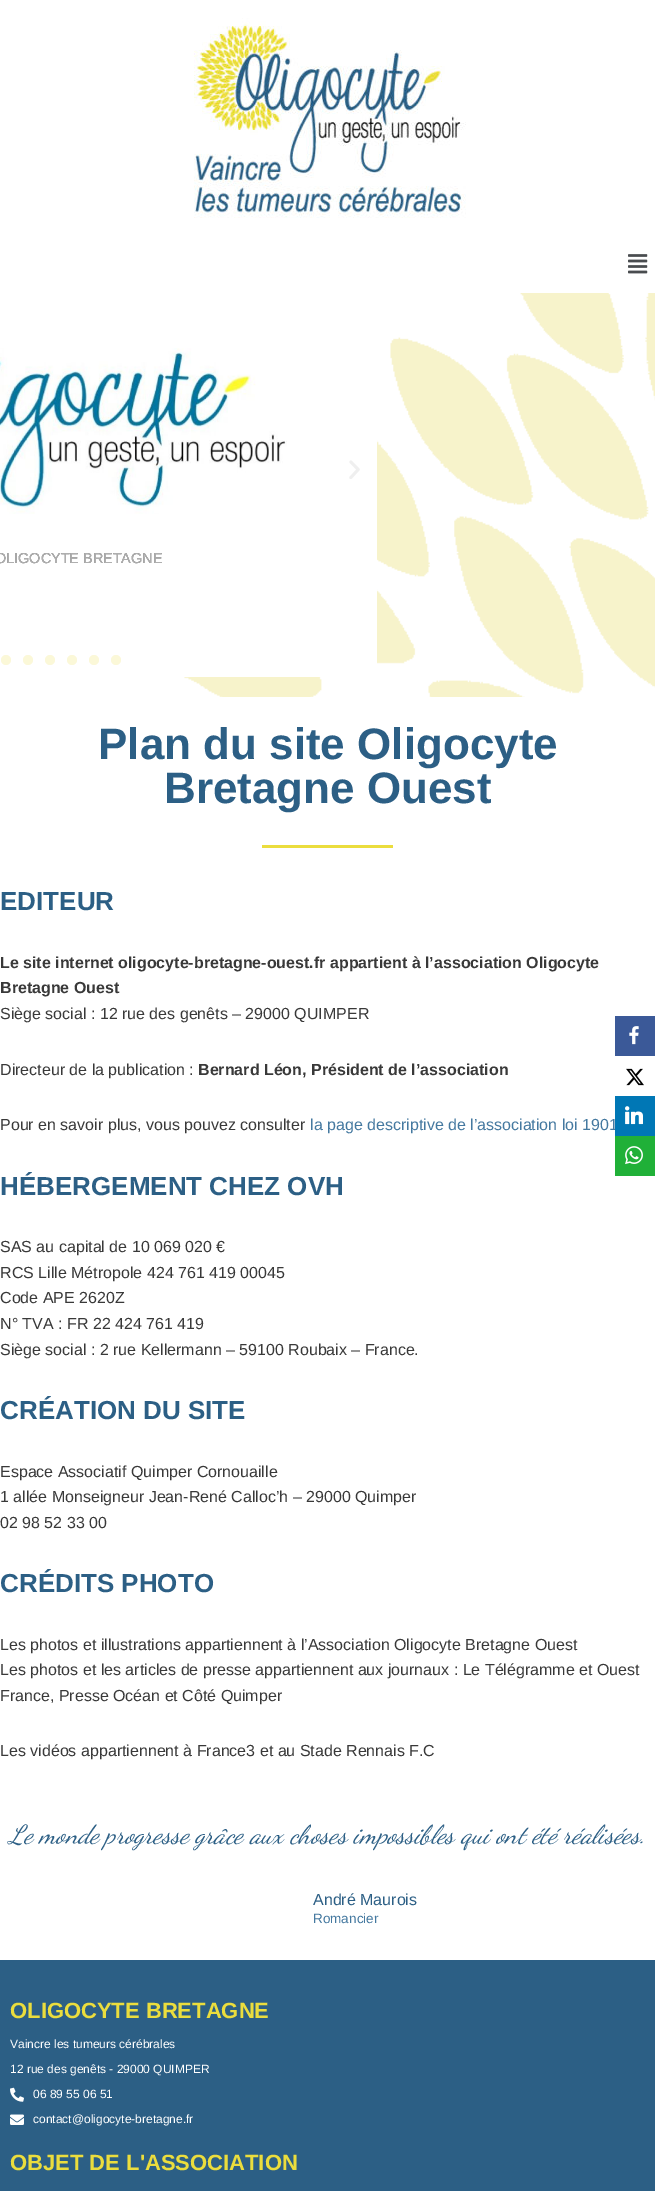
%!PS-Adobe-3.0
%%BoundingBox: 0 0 655 2191
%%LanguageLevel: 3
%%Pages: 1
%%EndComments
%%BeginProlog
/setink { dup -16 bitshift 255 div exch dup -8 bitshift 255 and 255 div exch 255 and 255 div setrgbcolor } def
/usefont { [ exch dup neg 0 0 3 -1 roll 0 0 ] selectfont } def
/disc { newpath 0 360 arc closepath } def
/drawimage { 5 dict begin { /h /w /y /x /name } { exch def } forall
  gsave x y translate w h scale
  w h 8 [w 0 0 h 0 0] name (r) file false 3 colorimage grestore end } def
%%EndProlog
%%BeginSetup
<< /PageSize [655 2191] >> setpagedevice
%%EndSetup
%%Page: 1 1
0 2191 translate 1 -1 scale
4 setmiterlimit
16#FFFFFF setink
0 0 655 2191 rectfill
(img1.raw) 0 293 655 404 drawimage
(img2.raw) 194 18 272 200 drawimage
(img3.raw) 628 254 20 20 drawimage
127 401 250 276 rectfill
(img4.raw) 349 460 11 19 drawimage
(img5.raw) 0 348 287 166 drawimage
/LiberationSans-Regular 14.4 usefont
16#6B6B6B setink
-5 563 moveto (OLIGOCYTE BRETAGNE) show
16#AFAFAF setink
-5 563 moveto (OLIGOCYTE BRETAGNE) show
16#FBF8D8 setink
6 660 5 disc fill
28 660 5 disc fill
50 660 5 disc fill
72 660 5 disc fill
94 660 5 disc fill
116 660 5 disc fill
/LiberationSans-Bold 44 usefont
16#2C5F85 setink
98 759 moveto (Plan du site Oligocyte) show
164 803 moveto (Bretagne Ouest) show
16#EBDD3D setink
262 845 131 3 rectfill
/LiberationSans-Bold 26 usefont
16#2C5F85 setink
0 910 moveto (EDITEUR) show
/LiberationSans-Bold 16 usefont
16#393939 setink
0 968 moveto (Le site internet oligocyte-bretagne-ouest.fr appartient à l’association Oligocyte) show
0 993 moveto (Bretagne Ouest) show
/LiberationSans-Regular 16 usefont
0 1019 moveto (Siège social : 12 rue des genêts – 29000 QUIMPER) show
0 1075 moveto (Directeur de la publication :) show
/LiberationSans-Bold 16 usefont
198 1075 moveto (Bernard Léon, Président de l’association) show
/LiberationSans-Regular 16 usefont
0 1130 moveto (Pour en savoir plus, vous pouvez consulter) show
16#4579A0 setink
310 1130 moveto (la page descriptive de l’association loi 1901) show
/LiberationSans-Bold 26 usefont
16#2C5F85 setink
0 1195 moveto (HÉBERGEMENT CHEZ OVH) show
/LiberationSans-Regular 16 usefont
16#393939 setink
[
    [(SAS au capital de 10 069 020 €) 0 1252]
    [(RCS Lille Métropole 424 761 419 00045) 0 1278]
    [(Code APE 2620Z) 0 1303]
    [(N° TVA : FR 22 424 761 419) 0 1329]
    [(Siège social : 2 rue Kellermann – 59100 Roubaix – France.) 0 1355]
] { aload pop moveto show } forall
/LiberationSans-Bold 26 usefont
16#2C5F85 setink
0 1419 moveto (CRÉATION DU SITE) show
/LiberationSans-Regular 16 usefont
16#393939 setink
[
    [(Espace Associatif Quimper Cornouaille) 0 1477]
    [(1 allée Monseigneur Jean-René Calloc’h – 29000 Quimper) 0 1502]
    [(02 98 52 33 00) 0 1528]
] { aload pop moveto show } forall
/LiberationSans-Bold 26 usefont
16#2C5F85 setink
0 1592 moveto (CRÉDITS PHOTO) show
/LiberationSans-Regular 16 usefont
16#393939 setink
[
    [(Les photos et illustrations appartiennent à l’Association Oligocyte Bretagne Ouest) 0 1650]
    [(Les photos et les articles de presse appartiennent aux journaux : Le Télégramme et Ouest) 0 1675]
    [(France, Presse Océan et Côté Quimper) 0 1701]
    [(Les vidéos appartiennent à France3 et au Stade Rennais F.C) 0 1756]
] { aload pop moveto show } forall
/DancingScript-Italic 26 usefont
16#2C5F85 setink
9 1843 moveto (Le monde progresse grâce aux choses impossibles qui ont été réalisées.) show
/LiberationSans-Regular 16 usefont
313 1905 moveto (André Maurois) show
/LiberationSans-Regular 13.5 usefont
16#4579A0 setink
313 1923 moveto (Romancier) show
16#2C5F85 setink
0 1960 655 231 rectfill
/LiberationSans-Bold 22 usefont
16#EBDD3D setink
10 2018 moveto (OLIGOCYTE BRETAGNE) show
/LiberationSans-Regular 12 usefont
16#FFFFFF setink
10 2048 moveto (Vaincre les tumeurs cérébrales) show
10 2073 moveto (12 rue des genêts - 29000 QUIMPER) show
(img6.raw) 10 2087 14 15 drawimage
33 2098 moveto (06 89 55 06 51) show
(img7.raw) 10 2114 14 11 drawimage
33 2123 moveto (contact@oligocyte-bretagne.fr) show
/LiberationSans-Bold 22 usefont
16#EBDD3D setink
10 2170 moveto (OBJET DE L'ASSOCIATION) show
16#3B5998 setink
615 1016 40 40 rectfill
(img8.raw) 629 1026 10 19 drawimage
(img9.raw) 626 1068 18 18 drawimage
16#0077B5 setink
615 1096 40 40 rectfill
(img10.raw) 625 1106 18 19 drawimage
16#20B038 setink
615 1136 40 40 rectfill
(img11.raw) 625 1146 18 19 drawimage
showpage
%%EOF
